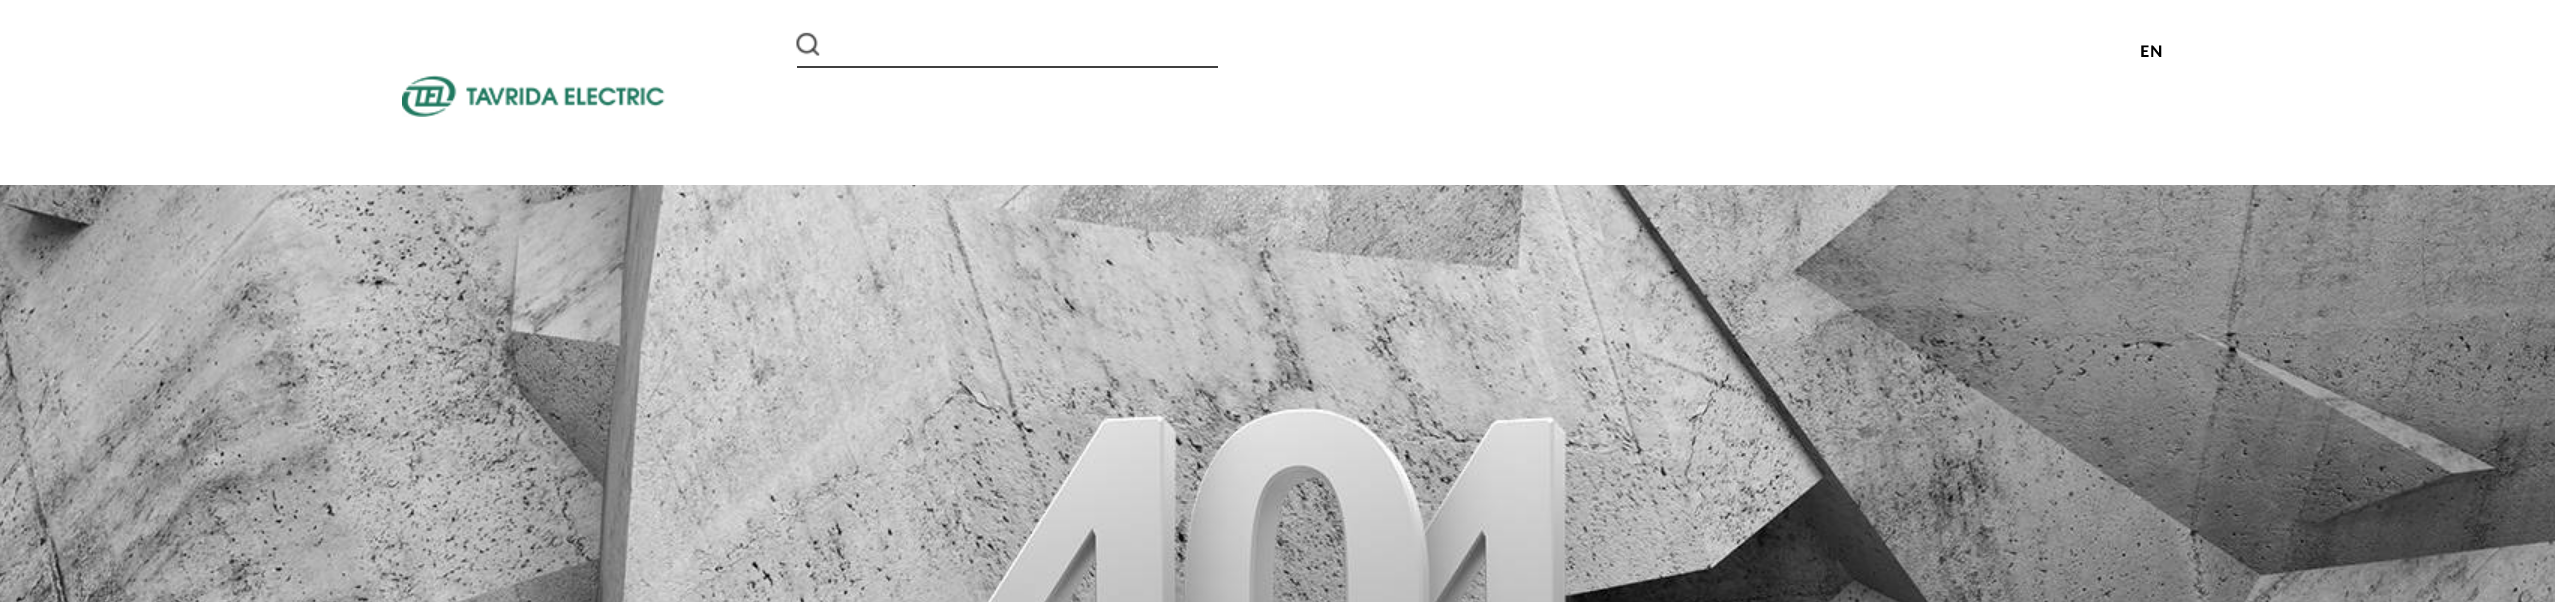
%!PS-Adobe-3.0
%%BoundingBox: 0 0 2555 602
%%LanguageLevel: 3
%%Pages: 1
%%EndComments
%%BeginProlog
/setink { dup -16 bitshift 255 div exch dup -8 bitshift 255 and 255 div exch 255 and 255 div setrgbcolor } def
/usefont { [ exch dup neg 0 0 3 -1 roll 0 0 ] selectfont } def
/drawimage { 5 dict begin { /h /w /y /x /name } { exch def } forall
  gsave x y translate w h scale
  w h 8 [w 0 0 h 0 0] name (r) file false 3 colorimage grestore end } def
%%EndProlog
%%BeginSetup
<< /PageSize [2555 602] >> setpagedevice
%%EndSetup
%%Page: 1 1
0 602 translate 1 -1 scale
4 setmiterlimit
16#FFFFFF setink
0 0 2555 602 rectfill
(img1.raw) 796 32 24 24 drawimage
16#404040 setink
797 66 421 2 rectfill
/Lato-Black 16 usefont
16#000000 setink
2140 57 moveto 1 0 (EN) ashow
(img2.raw) 402 75 263 42 drawimage
(img3.raw) 0 185 2555 417 drawimage
showpage
%%EOF
